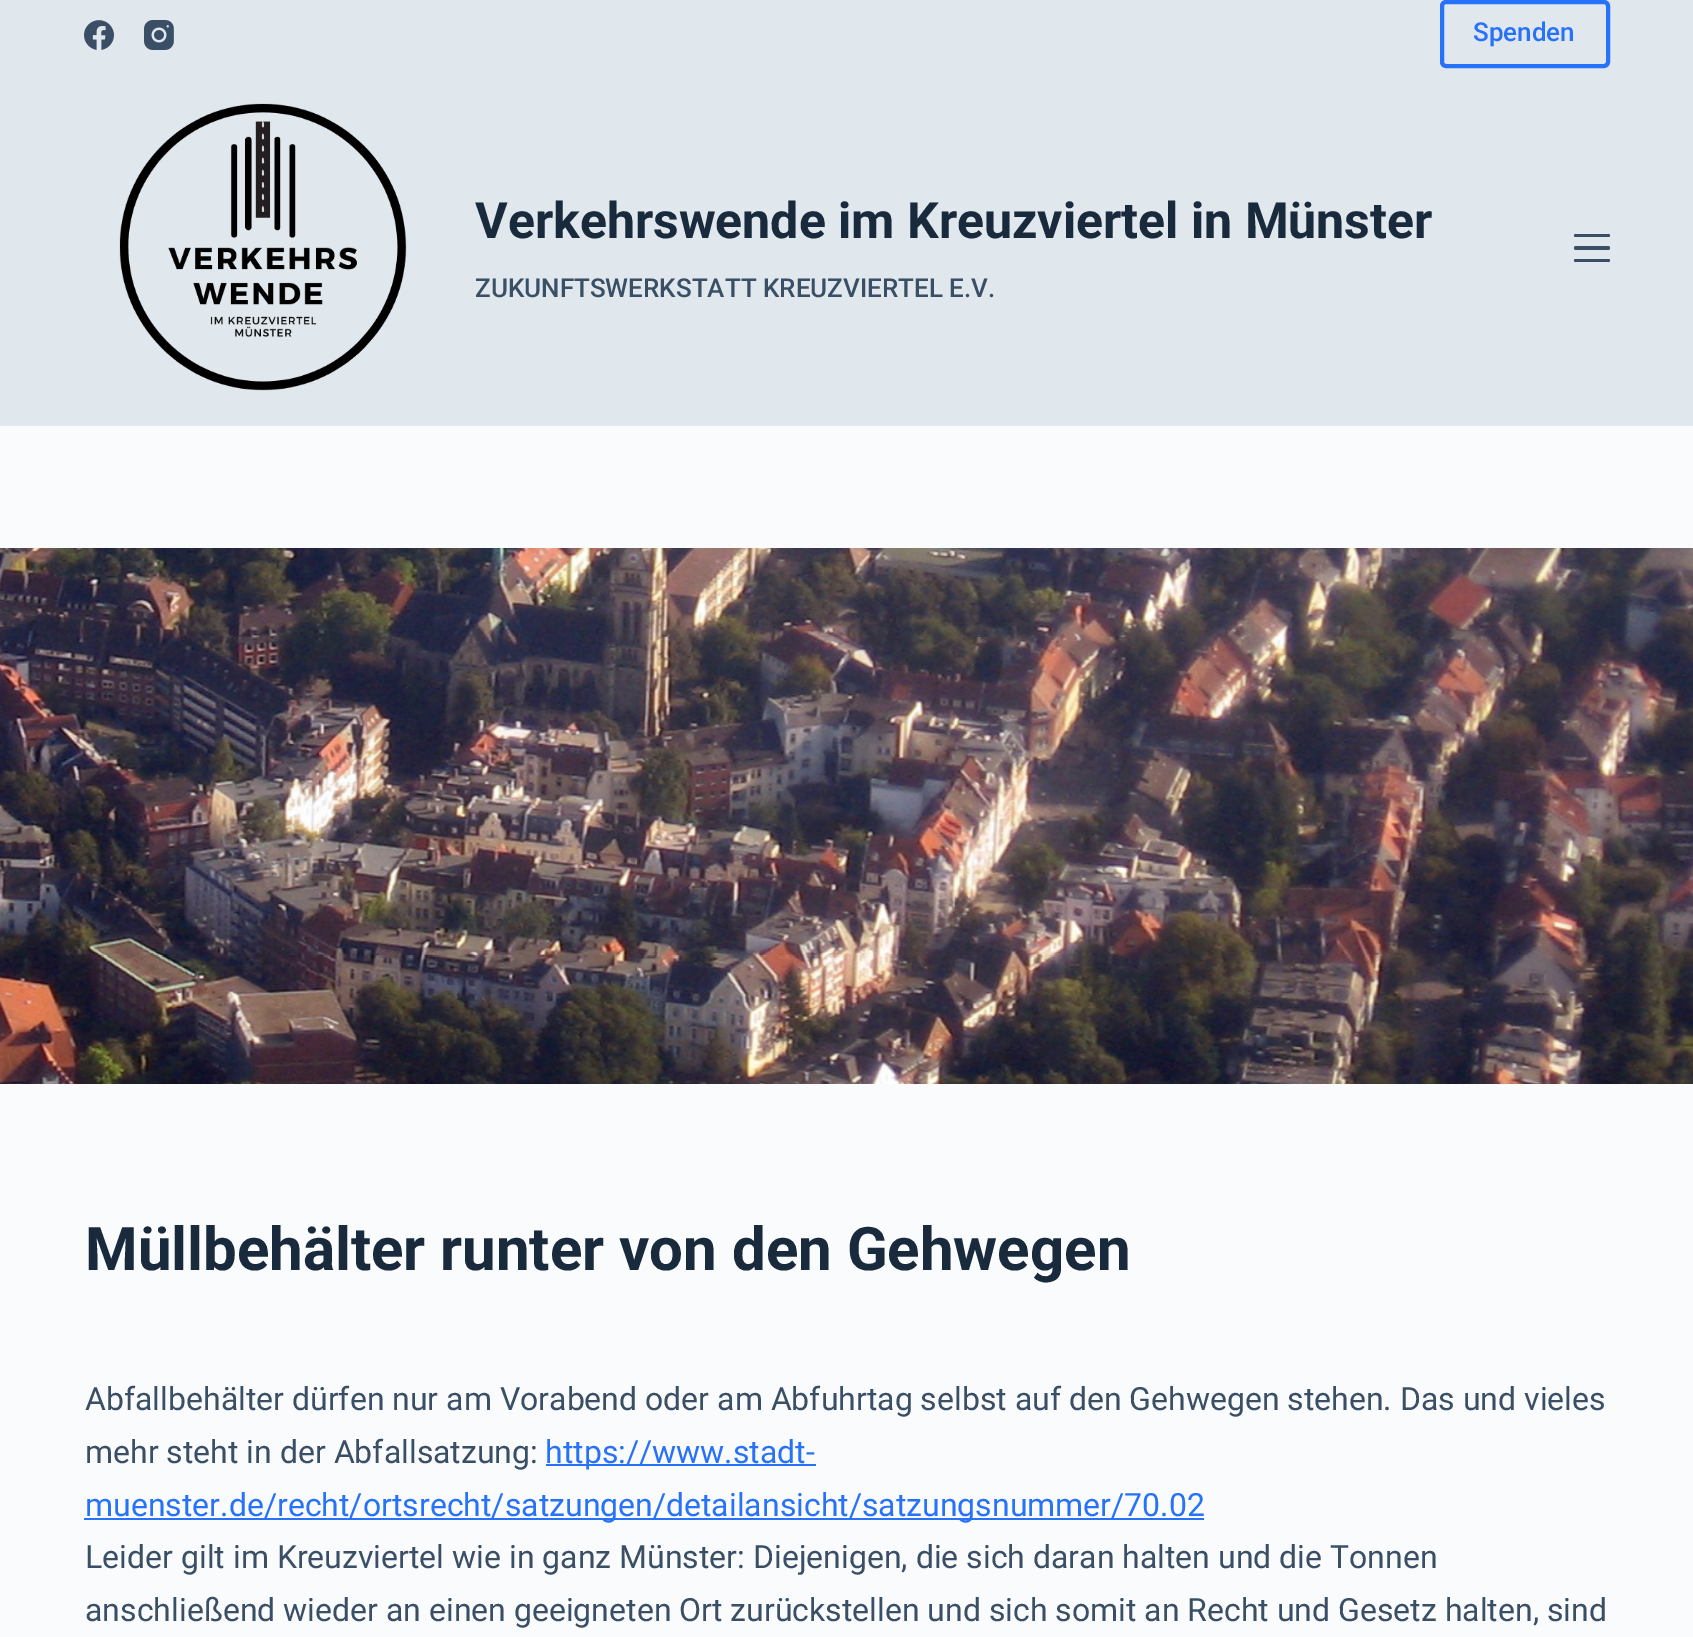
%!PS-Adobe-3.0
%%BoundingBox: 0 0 1693 1637
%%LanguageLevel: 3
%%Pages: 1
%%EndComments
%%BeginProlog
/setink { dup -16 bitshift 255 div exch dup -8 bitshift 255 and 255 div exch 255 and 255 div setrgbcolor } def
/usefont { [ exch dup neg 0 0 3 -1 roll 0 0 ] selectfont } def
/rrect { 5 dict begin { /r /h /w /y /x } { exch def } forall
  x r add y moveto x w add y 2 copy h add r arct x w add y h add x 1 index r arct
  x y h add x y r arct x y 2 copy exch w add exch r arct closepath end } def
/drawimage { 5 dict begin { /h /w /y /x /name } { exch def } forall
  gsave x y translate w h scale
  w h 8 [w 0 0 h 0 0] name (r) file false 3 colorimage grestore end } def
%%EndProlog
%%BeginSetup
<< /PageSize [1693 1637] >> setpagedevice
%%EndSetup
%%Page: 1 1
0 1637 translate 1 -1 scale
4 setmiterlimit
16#FAFBFC setink
0 0 1693 1637 rectfill
16#E1E8ED setink
0 0 1693 426 rectfill
(img1.raw) 84 20 30 30 drawimage
(img2.raw) 144 20 30 30 drawimage
16#2872FA setink
4 setlinewidth
1442 2 166 64 4 rrect stroke
/Roboto-Medium 26 usefont
1473 41 moveto (Spenden) show
(img3.raw) 119 103 288 288 drawimage
/Roboto-Bold 50 usefont
16#192A3D setink
475 238 moveto (Verkehrswende im Kreuzviertel in Münster) show
/Roboto-Medium 26 usefont
16#3A4F66 setink
475 297 moveto (ZUKUNFTSWERKSTATT KREUZVIERTEL E.V.) show
1574 234 36 3 1.5 rrect fill
1574 246 36 4 2 rrect fill
1574 259 36 3 1.5 rrect fill
(img4.raw) 0 548 1693 536 drawimage
/Roboto-Bold 60 usefont
16#192A3D setink
85 1270 moveto (Müllbehälter runter von den Gehwegen) show
/Roboto-Regular 32 usefont
16#3A4F66 setink
85 1410 moveto (Abfallbehälter dürfen nur am Vorabend oder am Abfuhrtag selbst auf den Gehwegen stehen. Das und vieles) show
85 1463 moveto (mehr steht in der Abfallsatzung:) show
16#2872FA setink
546 1464 270 2 rectfill
545 1463 moveto (https://www.stadt-) show
84 1518 1120 2 rectfill
85 1516 moveto (muenster.de/recht/ortsrecht/satzungen/detailansicht/satzungsnummer/70.02) show
16#3A4F66 setink
85 1568 moveto (Leider gilt im Kreuzviertel wie in ganz Münster: Diejenigen, die sich daran halten und die Tonnen) show
85 1621 moveto (anschließend wieder an einen geeigneten Ort zurückstellen und sich somit an Recht und Gesetz halten, sind) show
showpage
%%EOF
